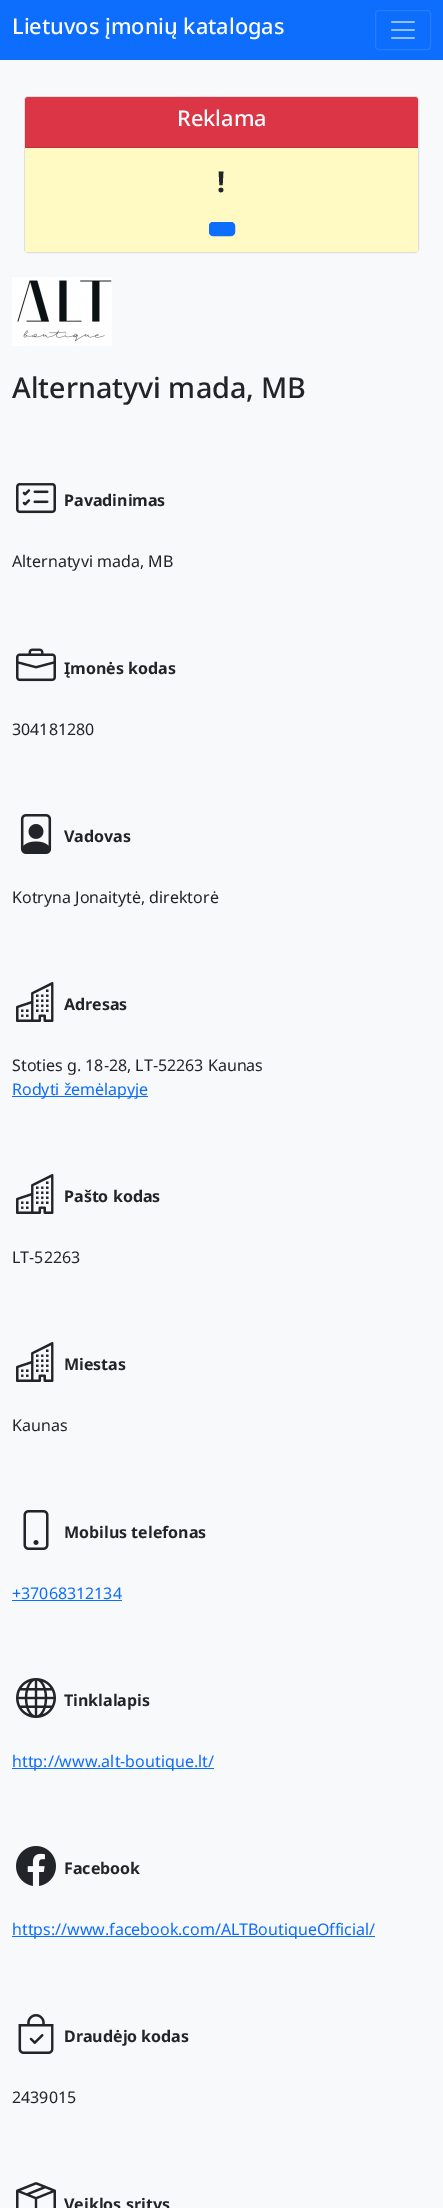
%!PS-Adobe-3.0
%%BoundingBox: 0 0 443 2208
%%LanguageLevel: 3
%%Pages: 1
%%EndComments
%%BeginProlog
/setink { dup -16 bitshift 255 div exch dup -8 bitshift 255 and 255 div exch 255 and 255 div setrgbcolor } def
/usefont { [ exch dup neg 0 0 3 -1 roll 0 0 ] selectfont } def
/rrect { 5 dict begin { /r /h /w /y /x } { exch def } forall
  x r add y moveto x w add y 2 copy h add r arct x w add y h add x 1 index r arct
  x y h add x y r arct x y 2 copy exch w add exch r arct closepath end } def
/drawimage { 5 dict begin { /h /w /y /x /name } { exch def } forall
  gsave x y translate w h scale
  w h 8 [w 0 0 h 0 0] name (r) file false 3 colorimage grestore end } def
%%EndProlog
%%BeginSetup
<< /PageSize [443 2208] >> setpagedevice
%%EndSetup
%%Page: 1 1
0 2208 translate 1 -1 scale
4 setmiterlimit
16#F8F9FA setink
0 0 443 2208 rectfill
16#0D6EFD setink
0 0 443 60 rectfill
/NotoSans-Medium 21.75 usefont
16#FFFFFF setink
12 34 moveto (Lietuvos įmonių katalogas) show
16#257DFD setink
375.5 10.5 55 39 3.5 rrect stroke
(img1.raw) 391 21 24 18 drawimage
16#DFDFDF setink
24.5 96.5 394 156 3.5 rrect stroke
16#DC3545 setink
28 97 moveto 415 97 lineto 416.5 97 418 98.5 418 100 curveto 418 148 lineto 25 148 lineto 25 100 lineto 25 98.5 26.5 97 28 97 curveto closepath fill
16#C12E3C setink
25 147 393 1 rectfill
16#FFFFFF setink
177 126 moveto (Reklama) show
16#FFF9C4 setink
25 148 393 104 rectfill
/NotoSans-Bold 28.6 usefont
16#212529 setink
217 192 moveto (!) show
16#0D6EFD setink
209.5 222.5 25 13 3.5 rrect gsave fill grestore
stroke
(img2.raw) 12 277 100 69 drawimage
/NotoSans-Medium 28.6 usefont
16#212529 setink
12 398 moveto (Alternatyvi mada, MB) show
(img3.raw) 16 482 40 32 drawimage
/NotoSans-Bold 16 usefont
64 506 moveto (Pavadinimas) show
/NotoSans-Regular 16 usefont
12 567 moveto (Alternatyvi mada, MB) show
(img4.raw) 16 648 40 34 drawimage
/NotoSans-Bold 16 usefont
64 674 moveto (Įmonės kodas) show
/NotoSans-Regular 16 usefont
12 735 moveto (304181280) show
(img5.raw) 20 814 32 40 drawimage
/NotoSans-Bold 16 usefont
64 842 moveto (Vadovas) show
/NotoSans-Regular 16 usefont
12 903 moveto (Kotryna Jonaitytė, direktorė) show
(img6.raw) 16 982 38 40 drawimage
/NotoSans-Bold 16 usefont
64 1010 moveto (Adresas) show
/NotoSans-Regular 16 usefont
12 1071 moveto (Stoties g. 18-28, LT-52263 Kaunas) show
16#0D6EFD setink
12 1096 136 1 rectfill
12 1095 moveto (Rodyti žemėlapyje) show
(img6.raw) 16 1174 38 40 drawimage
/NotoSans-Bold 16 usefont
16#212529 setink
64 1202 moveto (Pašto kodas) show
/NotoSans-Regular 16 usefont
12 1263 moveto (LT-52263) show
(img6.raw) 16 1342 38 40 drawimage
/NotoSans-Bold 16 usefont
64 1370 moveto (Miestas) show
/NotoSans-Regular 16 usefont
12 1431 moveto (Kaunas) show
(img7.raw) 23 1510 26 40 drawimage
/NotoSans-Bold 16 usefont
64 1538 moveto (Mobilus telefonas) show
/NotoSans-Regular 16 usefont
16#0D6EFD setink
12 1599 moveto (+37068312134) show
12 1600 110 1 rectfill
(img8.raw) 16 1678 40 40 drawimage
/NotoSans-Bold 16 usefont
16#212529 setink
64 1706 moveto (Tinklalapis) show
16#0D6EFD setink
12 1768 202 1 rectfill
/NotoSans-Regular 16 usefont
12 1767 moveto (http://www.alt-boutique.lt/) show
(img9.raw) 16 1846 40 40 drawimage
/NotoSans-Bold 16 usefont
16#212529 setink
64 1874 moveto (Facebook) show
16#0D6EFD setink
12 1936 363 1 rectfill
/NotoSans-Regular 16 usefont
12 1935 moveto (https://www.facebook.com/ALTBoutiqueOfficial/) show
(img10.raw) 18 2014 36 40 drawimage
/NotoSans-Bold 16 usefont
16#212529 setink
64 2042 moveto (Draudėjo kodas) show
/NotoSans-Regular 16 usefont
12 2103 moveto (2439015) show
(img11.raw) 16 2182 40 26 drawimage
/NotoSans-Bold 16 usefont
64 2210 moveto (Veiklos sritys) show
showpage
%%EOF
